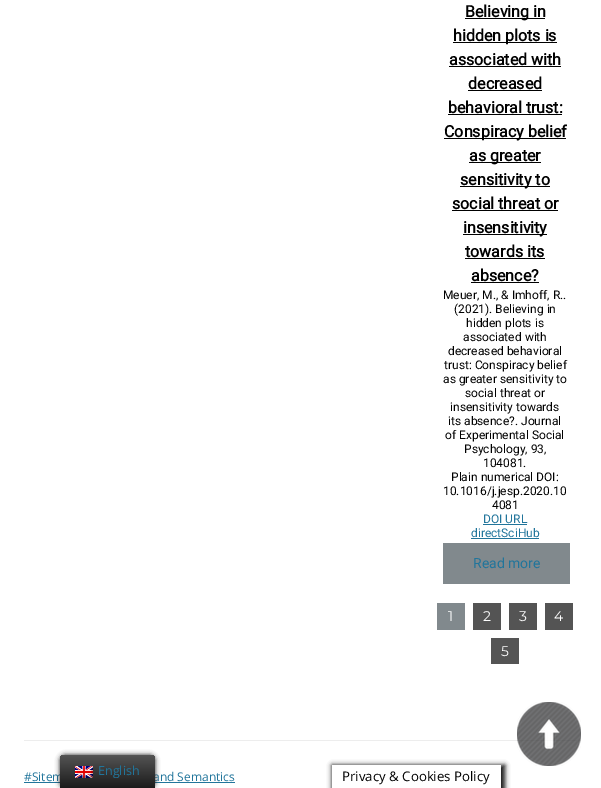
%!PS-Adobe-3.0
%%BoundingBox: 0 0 601 788
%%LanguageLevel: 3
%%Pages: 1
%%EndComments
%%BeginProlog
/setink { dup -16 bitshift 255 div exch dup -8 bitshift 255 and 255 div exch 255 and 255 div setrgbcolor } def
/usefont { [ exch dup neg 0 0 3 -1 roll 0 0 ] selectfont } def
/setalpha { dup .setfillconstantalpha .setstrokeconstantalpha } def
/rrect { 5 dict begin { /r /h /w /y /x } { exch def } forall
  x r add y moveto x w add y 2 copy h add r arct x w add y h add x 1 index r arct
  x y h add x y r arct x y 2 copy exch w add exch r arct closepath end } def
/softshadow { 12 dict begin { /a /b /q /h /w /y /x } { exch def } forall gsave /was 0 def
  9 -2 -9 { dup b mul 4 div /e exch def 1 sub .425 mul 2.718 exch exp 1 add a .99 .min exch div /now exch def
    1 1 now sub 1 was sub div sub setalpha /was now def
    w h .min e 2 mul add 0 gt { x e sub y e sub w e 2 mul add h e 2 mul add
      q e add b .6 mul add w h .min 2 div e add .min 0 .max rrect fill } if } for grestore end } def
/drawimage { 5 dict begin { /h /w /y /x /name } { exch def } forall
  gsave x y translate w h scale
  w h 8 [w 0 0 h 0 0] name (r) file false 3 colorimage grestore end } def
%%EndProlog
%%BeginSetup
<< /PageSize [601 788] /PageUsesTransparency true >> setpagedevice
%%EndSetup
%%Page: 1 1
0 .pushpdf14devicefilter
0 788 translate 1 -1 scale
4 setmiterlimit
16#FFFFFF setink
0 0 601 788 rectfill
16#000000 setink
465 18 80 1 rectfill
/Roboto-Bold 16 usefont
465 17 moveto (Believing in) show
453 42 104 1 rectfill
453 41 moveto (hidden plots is) show
449 65 moveto (associated with) show
449 66 112 1 rectfill
468 89 moveto (decreased) show
468 90 74 1 rectfill
448 113 moveto (behavioral trust:) show
448 114 114 1 rectfill
444 138 122 1 rectfill
444 137 moveto (Conspiracy belief) show
469 162 72 1 rectfill
469 161 moveto (as greater) show
460 186 90 1 rectfill
460 185 moveto (sensitivity to) show
452 209 moveto (social threat or) show
452 210 106 1 rectfill
463 234 84 1 rectfill
463 233 moveto (insensitivity) show
465 257 moveto (towards its) show
465 258 80 1 rectfill
471 281 moveto (absence?) show
471 282 68 1 rectfill
/Roboto-Regular 12 usefont
[
    [(Meuer, M., & Imhoff, R..) 443 299]
    [(\(2021\). Believing in) 454 313]
    [(hidden plots is) 466 327]
    [(associated with) 463 341]
    [(decreased behavioral) 448 355]
    [(trust: Conspiracy belief) 444 369]
    [(as greater sensitivity to) 443 383]
    [(social threat or) 465 397]
    [(insensitivity towards) 450 411]
    [(its absence?. Journal) 448 425]
    [(of Experimental Social) 445 439]
    [(Psychology, 93,) 464 453]
    [(104081.) 483 467]
    [(Plain numerical DOI:) 451 481]
    [(10.1016/j.jesp.2020.10) 443 495]
    [(4081) 492 509]
] { aload pop moveto show } forall
16#21759B setink
483 523 moveto (DOI URL) show
483 524 44 1 rectfill
471 537 moveto (directSciHub) show
471 538 68 1 rectfill
16#81898D setink
443 543 127 41 rectfill
/Roboto-Regular 14 usefont
16#21759B setink
473 568 moveto (Read more) show
16#81898D setink
437 603 28 27 rectfill
/Montserrat-Regular 14 usefont
16#FFFFFF setink
448 621 moveto (1) show
16#545454 setink
473 603 28 27 rectfill
16#FFFFFF setink
483 621 moveto (2) show
16#545454 setink
509 603 28 27 rectfill
16#FFFFFF setink
519 621 moveto (3) show
16#545454 setink
545 603 28 27 rectfill
16#FFFFFF setink
554 621 moveto (4) show
16#545454 setink
491 638 28 26 rectfill
16#FFFFFF setink
501 656 moveto (5) show
16#EDEDED setink
24 740 553 1 rectfill
/OpenSans-Regular 12 usefont
16#21759B setink
24 781 moveto (#Sitem) show
24 782 36 1 rectfill
153 781 moveto (and Semantics) show
155 782 80 1 rectfill
(img1.raw) 517 702 64 64 drawimage
16#212121 setink
60 755 95 33 5 2.5 1 softshadow
gsave 65 755 moveto 150 755 lineto 153 755 155 757 155 760 curveto 155 788 lineto 60 788 lineto 60 760 lineto 60 757 62 755 65 755 curveto closepath clip newpath
<< /ShadingType 2 /ColorSpace /DeviceRGB /Coords [108 788 108 755] /Extend [true true] /Function << /FunctionType 2 /Domain [0 1] /C0 [0.106 0.106 0.106] /C1 [0.329 0.329 0.329] /N 1 >> >> shfill grestore
(img2.raw) 75 766 18 12 drawimage
/OpenSans-Regular 12.5 usefont
16#21759B setink
98 775 moveto (English) show
gsave
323 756 moveto 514 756 lineto 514 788 lineto 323 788 lineto closepath 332 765 moveto 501 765 lineto 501 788 lineto 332 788 lineto closepath eoclip newpath
16#161616 setink
332 765 173 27 0 2.5 1 softshadow
grestore
/OpenSans-Regular 13.25 usefont
16#000000 setink
342 781 moveto (Privacy & Cookies Policy) show
.poppdf14devicefilter showpage
%%EOF
